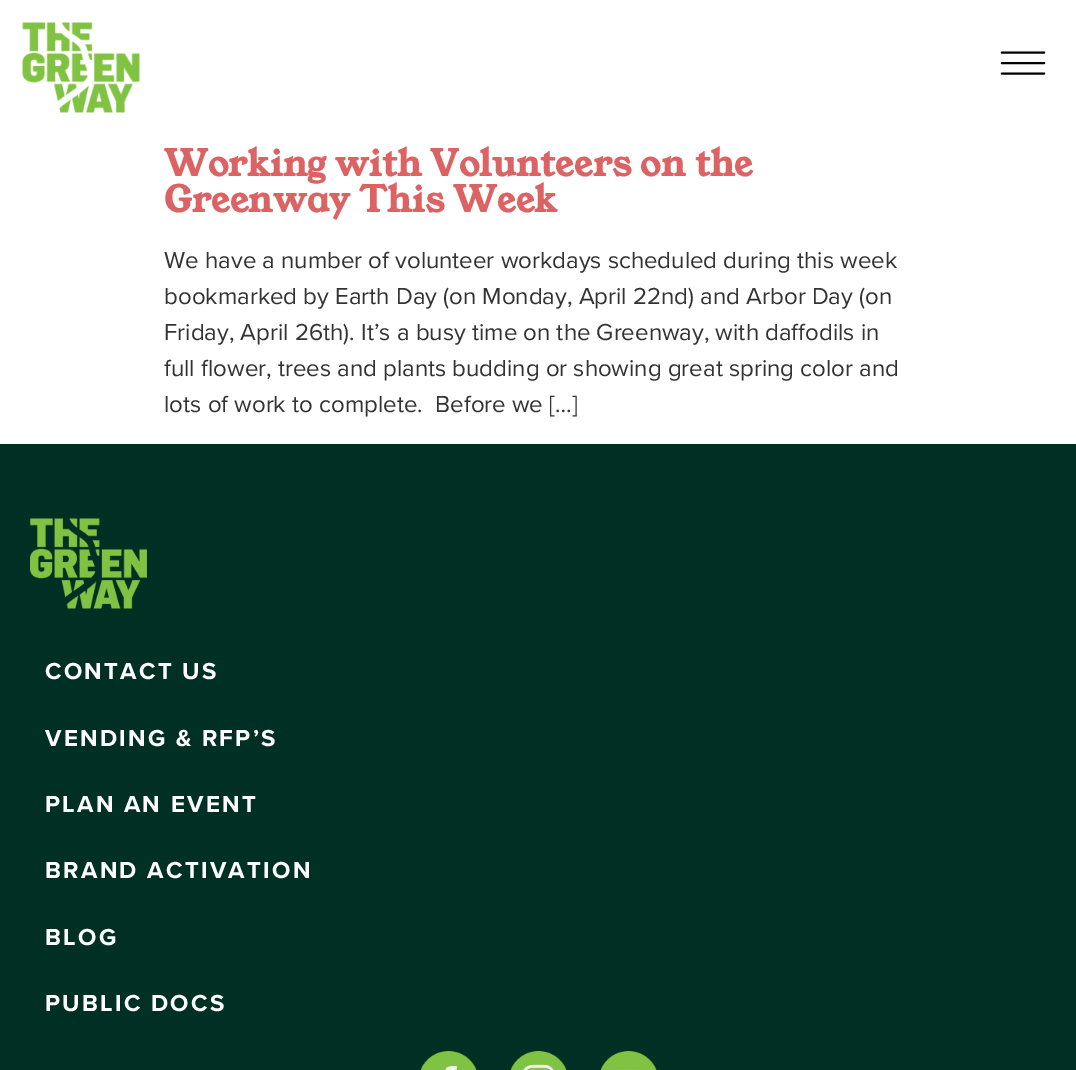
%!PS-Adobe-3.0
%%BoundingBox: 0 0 1076 1070
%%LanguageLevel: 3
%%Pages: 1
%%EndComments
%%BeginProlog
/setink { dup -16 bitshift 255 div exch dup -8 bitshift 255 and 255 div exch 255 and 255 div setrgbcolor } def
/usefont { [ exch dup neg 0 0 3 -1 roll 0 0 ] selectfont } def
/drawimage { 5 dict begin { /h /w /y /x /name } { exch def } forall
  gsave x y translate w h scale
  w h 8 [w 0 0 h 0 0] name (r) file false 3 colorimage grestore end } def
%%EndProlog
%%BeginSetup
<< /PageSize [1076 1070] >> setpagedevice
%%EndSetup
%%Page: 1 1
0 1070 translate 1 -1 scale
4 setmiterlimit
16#FFFFFF setink
0 0 1076 1070 rectfill
(img1.raw) 22 22 118 91 drawimage
16#000000 setink
2.1 setlinewidth
1 setlinecap
1 setlinejoin
1002 52.5 moveto 1044 52.5 lineto 1002 63 moveto 1044 63 lineto 1002 73.5 moveto 1044 73.5 lineto stroke
/YoungSerif-Bold 36 usefont
16#DB6364 setink
164 176 moveto 0.1 0 (Working with Volunteers on the) ashow
164 212 moveto 0.1 0 (Greenway This Week) ashow
/ProximaNova-Regular 24 usefont
16#333333 setink
[
    [(We have a number of volunteer workdays scheduled during this week) 164 268]
    [(bookmarked by Earth Day \(on Monday, April 22nd\) and Arbor Day \(on) 164 304]
    [(Friday, April 26th\). It’s a busy time on the Greenway, with daffodils in) 164 340]
    [(full flower, trees and plants budding or showing great spring color and) 164 376]
    [(lots of work to complete.  Before we […]) 164 412]
] { aload pop moveto show } forall
16#002F23 setink
0 444 1076 626 rectfill
(img2.raw) 30 518 117 91 drawimage
/ProximaNova-Bold 24 usefont
16#FFFFFF setink
45 679 moveto 2.25 0 (CONTACT US) ashow
45 746 moveto 2.25 0 (VENDING & RFP’S) ashow
45 812 moveto 2.25 0 (PLAN AN EVENT) ashow
45 878 moveto 2.25 0 (BRAND ACTIVATION) ashow
45 945 moveto 2.25 0 (BLOG) ashow
45 1011 moveto 2.25 0 (PUBLIC DOCS) ashow
(img3.raw) 420 1051 57 19 drawimage
(img4.raw) 510 1051 57 19 drawimage
(img5.raw) 600 1051 57 19 drawimage
showpage
%%EOF
